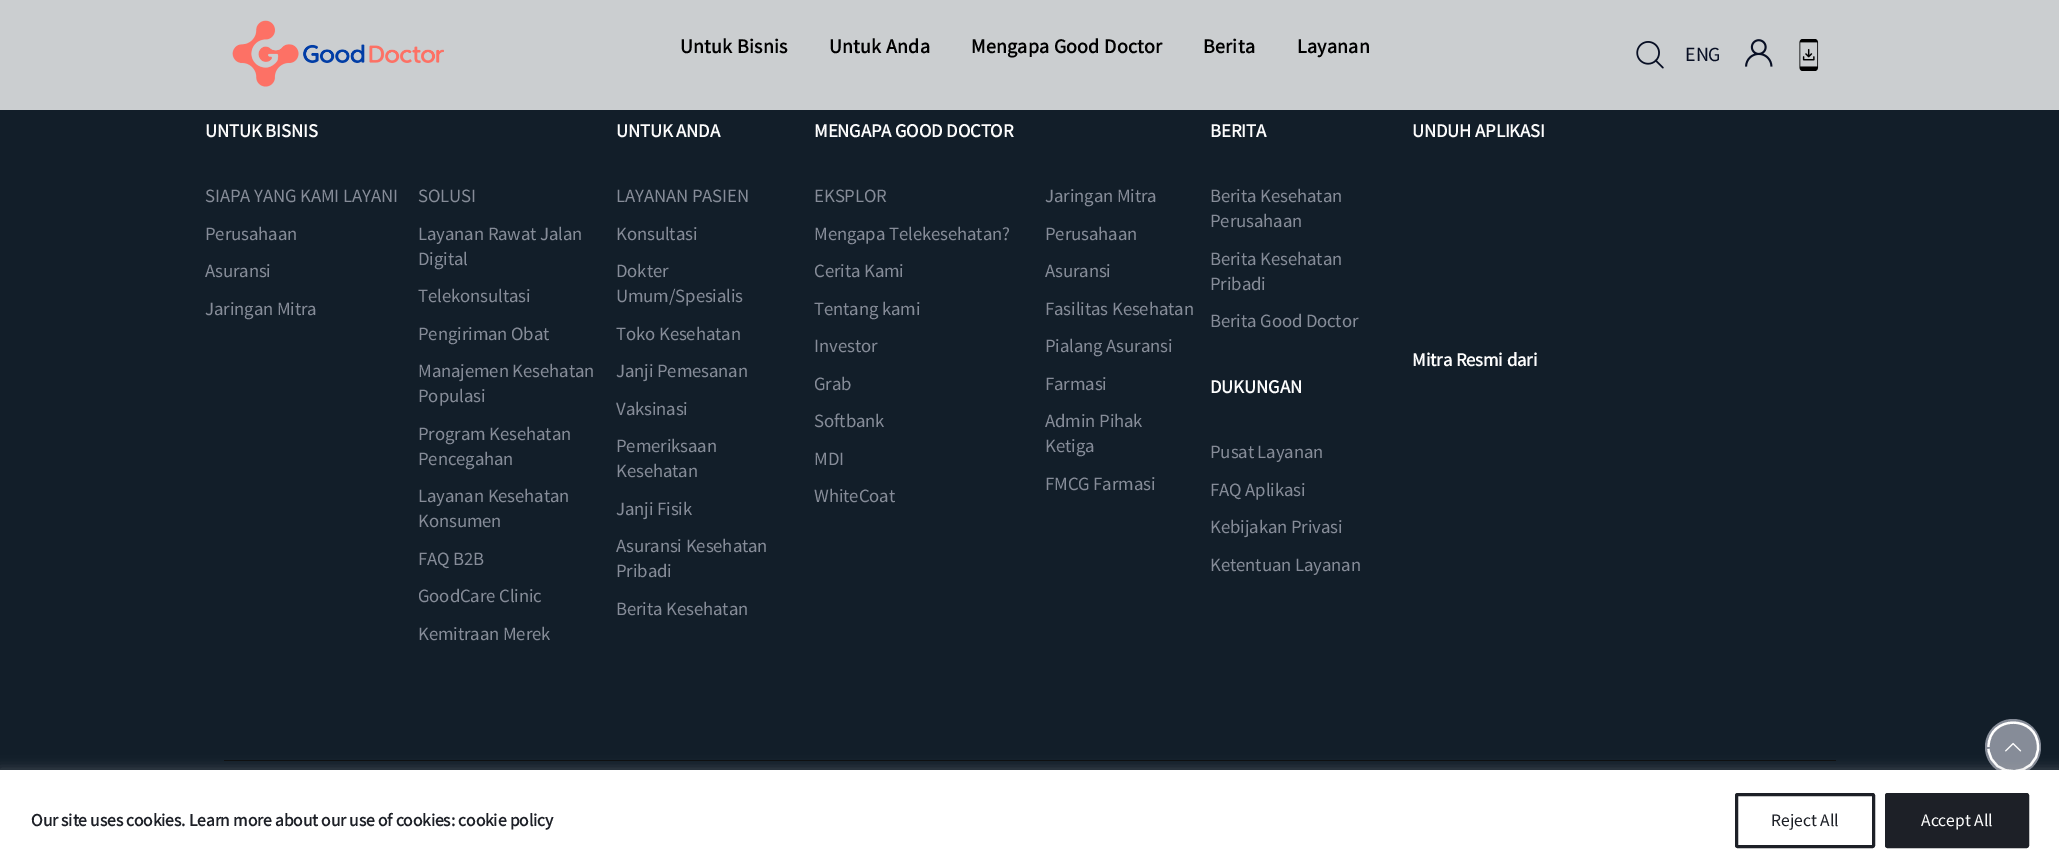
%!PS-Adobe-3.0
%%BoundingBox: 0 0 2059 868
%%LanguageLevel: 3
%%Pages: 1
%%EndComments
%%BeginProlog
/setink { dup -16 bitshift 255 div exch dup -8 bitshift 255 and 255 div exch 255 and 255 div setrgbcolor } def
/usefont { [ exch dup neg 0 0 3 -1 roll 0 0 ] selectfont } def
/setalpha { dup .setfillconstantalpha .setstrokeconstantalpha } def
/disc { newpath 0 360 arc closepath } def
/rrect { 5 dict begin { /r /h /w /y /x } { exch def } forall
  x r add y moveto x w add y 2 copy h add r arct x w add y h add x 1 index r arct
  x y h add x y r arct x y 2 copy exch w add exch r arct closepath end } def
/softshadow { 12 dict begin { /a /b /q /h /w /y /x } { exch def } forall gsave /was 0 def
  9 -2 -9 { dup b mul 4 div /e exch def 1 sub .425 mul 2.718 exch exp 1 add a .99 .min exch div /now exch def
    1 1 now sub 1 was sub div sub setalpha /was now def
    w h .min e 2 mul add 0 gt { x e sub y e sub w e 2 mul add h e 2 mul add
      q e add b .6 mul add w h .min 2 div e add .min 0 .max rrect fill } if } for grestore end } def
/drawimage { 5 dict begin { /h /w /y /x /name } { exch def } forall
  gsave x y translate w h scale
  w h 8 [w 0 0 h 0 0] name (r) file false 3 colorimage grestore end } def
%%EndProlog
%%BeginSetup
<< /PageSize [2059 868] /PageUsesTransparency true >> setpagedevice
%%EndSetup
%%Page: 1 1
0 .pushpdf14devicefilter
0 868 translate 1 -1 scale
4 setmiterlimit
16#121E29 setink
0 0 2059 868 rectfill
16#CBCED0 setink
0 0 2059 110 rectfill
(img1.raw) 232 20 212 67 drawimage
/SourceSansPro-Bold 20 usefont
16#000000 setink
680 53 moveto 0.25 0 (Untuk Bisnis) ashow
829 53 moveto 0.25 0 (Untuk Anda) ashow
971 53 moveto 0.25 0 (Mengapa Good Doctor) ashow
1203 53 moveto 0.25 0 (Berita) ashow
1297 53 moveto 0.25 0 (Layanan) ashow
(img2.raw) 1636 41 28 28 drawimage
/SourceSansPro-Regular 20 usefont
16#080F24 setink
1685 61 moveto (ENG) show
(img3.raw) 1745 39 28 28 drawimage
(img4.raw) 1799 39 20 32 drawimage
/SourceSansPro-Bold 18.75 usefont
16#FCFCFC setink
205 137 moveto -0.12 0 (UNTUK BISNIS) ashow
/SourceSansPro-Regular 18.75 usefont
16#868C98 setink
205 202 moveto -0.12 0 (SIAPA YANG KAMI LAYANI) ashow
205 240 moveto -0.12 0 (Perusahaan) ashow
205 277 moveto -0.12 0 (Asuransi) ashow
205 315 moveto -0.12 0 (Jaringan Mitra) ashow
418 202 moveto -0.12 0 (SOLUSI) ashow
418 240 moveto -0.12 0 (Layanan Rawat Jalan) ashow
418 265 moveto -0.12 0 (Digital) ashow
418 302 moveto -0.12 0 (Telekonsultasi) ashow
418 340 moveto -0.12 0 (Pengiriman Obat) ashow
418 377 moveto -0.12 0 (Manajemen Kesehatan) ashow
418 402 moveto -0.12 0 (Populasi) ashow
418 440 moveto -0.12 0 (Program Kesehatan) ashow
418 465 moveto -0.12 0 (Pencegahan) ashow
418 502 moveto -0.12 0 (Layanan Kesehatan) ashow
418 527 moveto -0.12 0 (Konsumen) ashow
418 565 moveto -0.12 0 (FAQ B2B) ashow
418 602 moveto -0.12 0 (GoodCare Clinic) ashow
418 640 moveto -0.12 0 (Kemitraan Merek) ashow
/SourceSansPro-Bold 18.75 usefont
16#FCFCFC setink
616 137 moveto -0.12 0 (UNTUK ANDA) ashow
/SourceSansPro-Regular 18.75 usefont
16#868C98 setink
616 202 moveto -0.12 0 (LAYANAN PASIEN) ashow
616 240 moveto -0.12 0 (Konsultasi) ashow
616 277 moveto -0.12 0 (Dokter) ashow
616 302 moveto -0.12 0 (Umum/Spesialis) ashow
616 340 moveto -0.12 0 (Toko Kesehatan) ashow
616 377 moveto -0.12 0 (Janji Pemesanan) ashow
616 415 moveto -0.12 0 (Vaksinasi) ashow
616 452 moveto -0.12 0 (Pemeriksaan) ashow
616 477 moveto -0.12 0 (Kesehatan) ashow
616 515 moveto -0.12 0 (Janji Fisik) ashow
616 552 moveto -0.12 0 (Asuransi Kesehatan) ashow
616 577 moveto -0.12 0 (Pribadi) ashow
616 615 moveto -0.12 0 (Berita Kesehatan) ashow
/SourceSansPro-Bold 18.75 usefont
16#FCFCFC setink
814 137 moveto -0.12 0 (MENGAPA GOOD DOCTOR) ashow
/SourceSansPro-Regular 18.75 usefont
16#868C98 setink
814 202 moveto -0.12 0 (EKSPLOR) ashow
814 240 moveto -0.12 0 (Mengapa Telekesehatan?) ashow
814 277 moveto -0.12 0 (Cerita Kami) ashow
814 315 moveto -0.12 0 (Tentang kami) ashow
814 352 moveto -0.12 0 (Investor) ashow
814 390 moveto -0.12 0 (Grab) ashow
814 427 moveto -0.12 0 (Softbank) ashow
814 465 moveto -0.12 0 (MDI) ashow
814 502 moveto -0.12 0 (WhiteCoat) ashow
1045 202 moveto -0.12 0 (Jaringan Mitra) ashow
1045 240 moveto -0.12 0 (Perusahaan) ashow
1045 277 moveto -0.12 0 (Asuransi) ashow
1045 315 moveto -0.12 0 (Fasilitas Kesehatan) ashow
1045 352 moveto -0.12 0 (Pialang Asuransi) ashow
1045 390 moveto -0.12 0 (Farmasi) ashow
1045 427 moveto -0.12 0 (Admin Pihak) ashow
1045 452 moveto -0.12 0 (Ketiga) ashow
1045 490 moveto -0.12 0 (FMCG Farmasi) ashow
/SourceSansPro-Bold 18.75 usefont
16#FCFCFC setink
1210 137 moveto -0.12 0 (BERITA) ashow
/SourceSansPro-Regular 18.75 usefont
16#868C98 setink
1210 202 moveto -0.12 0 (Berita Kesehatan) ashow
1210 227 moveto -0.12 0 (Perusahaan) ashow
1210 265 moveto -0.12 0 (Berita Kesehatan) ashow
1210 290 moveto -0.12 0 (Pribadi) ashow
1210 327 moveto -0.12 0 (Berita Good Doctor) ashow
/SourceSansPro-Bold 18.75 usefont
16#FCFCFC setink
1210 393 moveto -0.12 0 (DUKUNGAN) ashow
/SourceSansPro-Regular 18.75 usefont
16#868C98 setink
1210 458 moveto -0.12 0 (Pusat Layanan) ashow
1210 496 moveto -0.12 0 (FAQ Aplikasi) ashow
1210 533 moveto -0.12 0 (Kebijakan Privasi) ashow
1210 571 moveto -0.12 0 (Ketentuan Layanan) ashow
/SourceSansPro-Bold 18.75 usefont
16#FCFCFC setink
1412 137 moveto -0.12 0 (UNDUH APLIKASI) ashow
1412 366 moveto -0.12 0 (Mitra Resmi dari) ashow
16#0C0D0E setink
224 760 1612 1 rectfill
16#868C98 setink
2013 747 28 disc fill
16#FFFFFF setink
2.2 setlinewidth
1988.5 747 moveto 1988.5 714.5 2038 714.5 2038 747 curveto 2038 778 1991.5 780 1988.5 749 curveto stroke
(img5.raw) 2005 742 17 10 drawimage
16#ACABAB setink
0 769 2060 99 0 6 0.3 softshadow
16#FFFFFF setink
0 770 2059 98 rectfill
/SourceSansPro-Bold 17.5 usefont
16#1D2027 setink
31 826 moveto -0.12 0 (Our site uses cookies. Learn more about our use of cookies: cookie policy) ashow
3 setlinewidth
1736.5 794.5 137 52 1 rrect stroke
/SourceSansPro-Regular 17.5 usefont
1771 826 moveto (Reject All) show
1886.5 794.5 141 52 1 rrect gsave fill grestore
stroke
16#FCFCFC setink
1921 826 moveto (Accept All) show
.poppdf14devicefilter showpage
%%EOF
